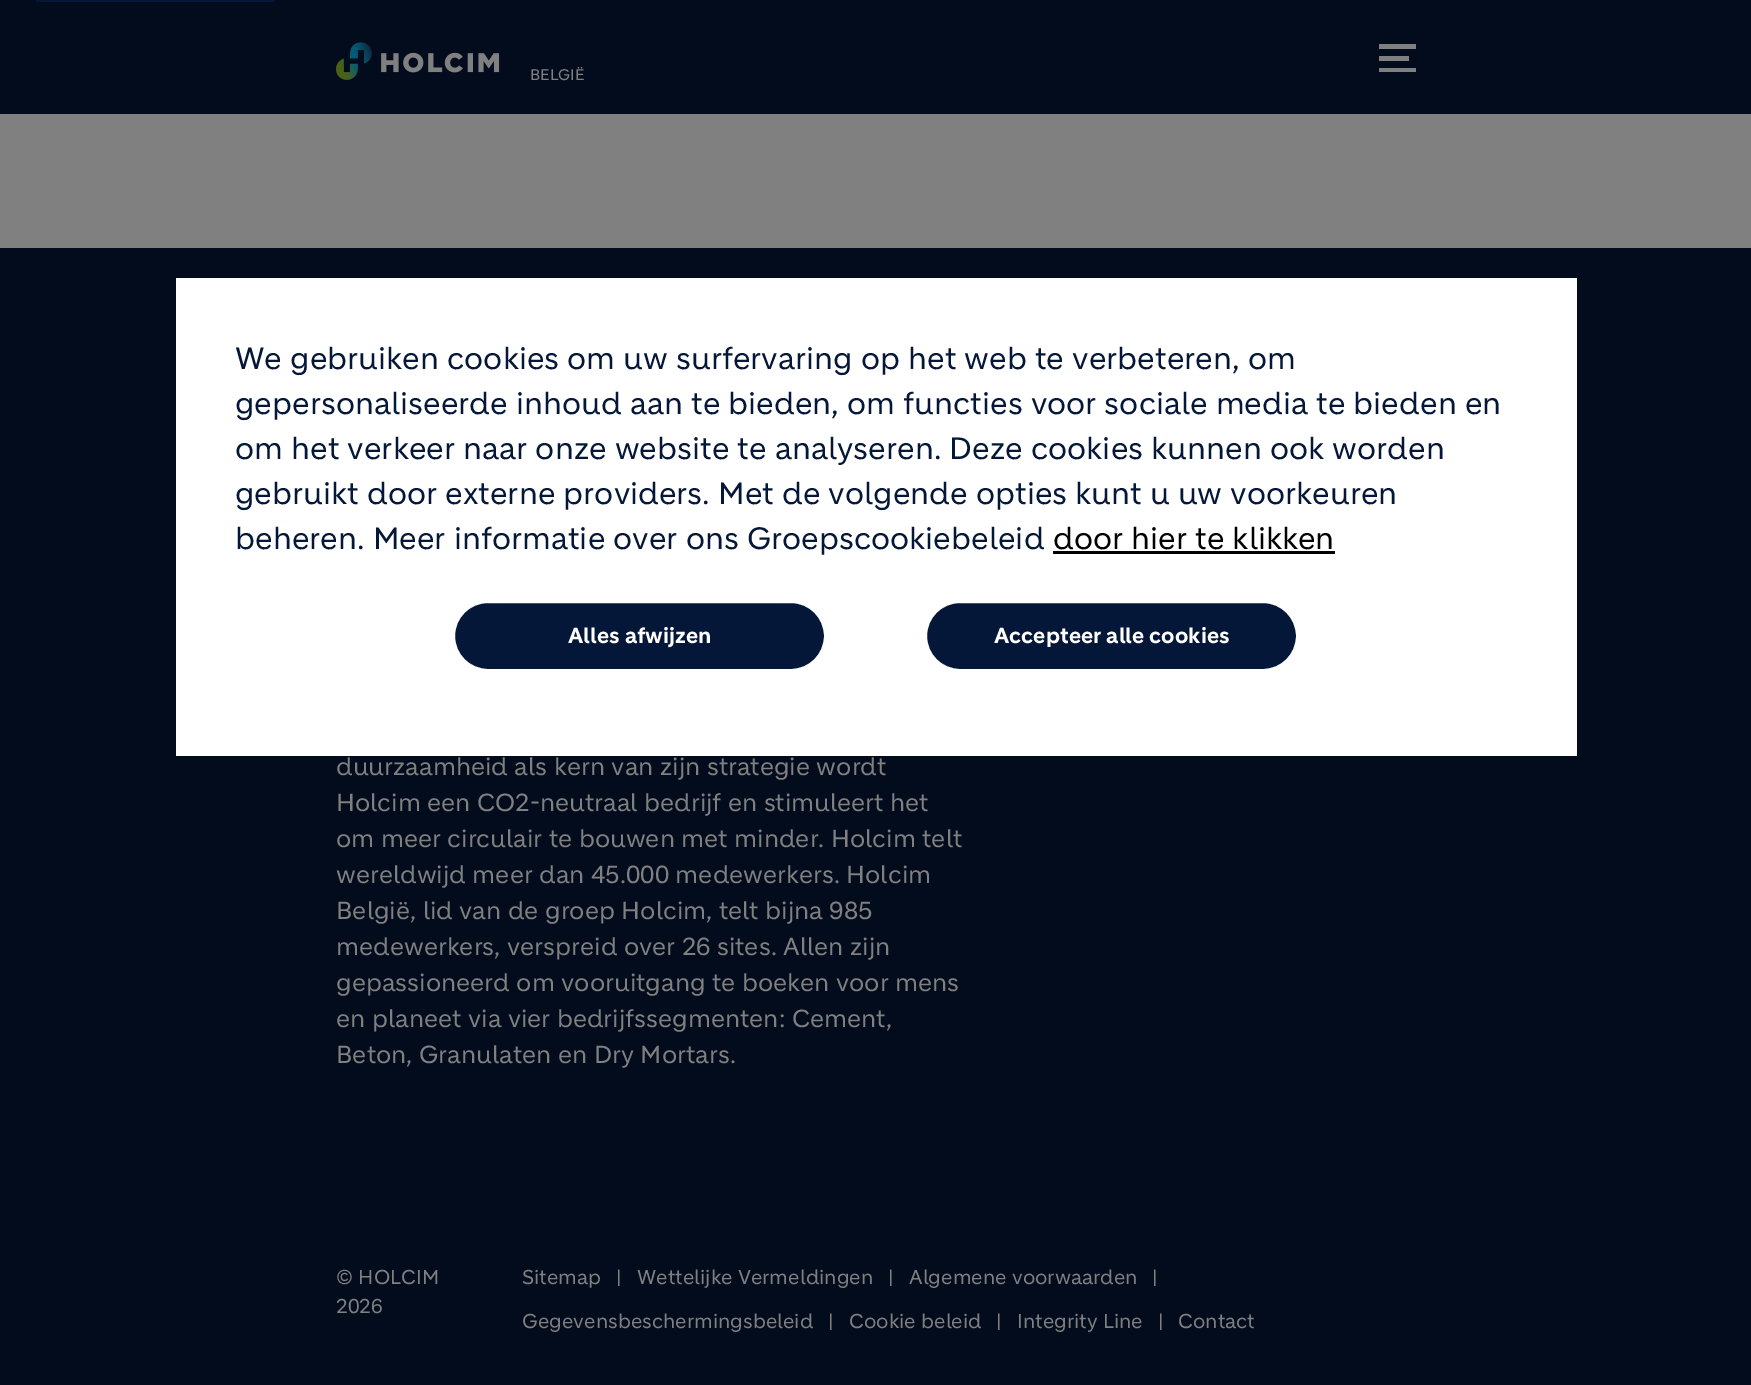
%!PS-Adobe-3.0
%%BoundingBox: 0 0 1751 1385
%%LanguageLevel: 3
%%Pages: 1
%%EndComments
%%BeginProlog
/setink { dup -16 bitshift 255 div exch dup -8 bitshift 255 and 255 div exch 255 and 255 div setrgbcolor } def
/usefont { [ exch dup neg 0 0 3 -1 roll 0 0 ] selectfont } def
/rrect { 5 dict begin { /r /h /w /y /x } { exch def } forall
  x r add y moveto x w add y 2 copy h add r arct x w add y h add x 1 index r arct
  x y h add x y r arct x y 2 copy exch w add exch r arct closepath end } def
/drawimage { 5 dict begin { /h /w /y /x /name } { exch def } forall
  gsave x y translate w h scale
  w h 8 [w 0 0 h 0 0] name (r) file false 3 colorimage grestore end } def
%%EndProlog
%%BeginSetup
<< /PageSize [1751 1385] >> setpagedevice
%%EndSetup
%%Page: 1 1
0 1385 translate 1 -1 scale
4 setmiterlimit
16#808080 setink
0 0 1751 1385 rectfill
[
    [0 0 1751 114 16#020C1D]
    [1379 44 37 5 16#808080]
    [1379 56 30 5 16#808080]
    [1379 68 37 4 16#808080]
] { aload pop setink rectfill } forall
(img1.raw) 336 42 164 38 drawimage
/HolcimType-Regular 15 usefont
530 80 moveto (BELGIË) show
16#020C1D setink
0 248 1751 1137 rectfill
/HolcimType-Regular 24 usefont
16#808080 setink
[
    [(duurzaamheid als kern van zijn strategie wordt) 336 775]
    [(Holcim een CO2-neutraal bedrijf en stimuleert het) 336 811]
    [(om meer circulair te bouwen met minder. Holcim telt) 336 847]
    [(wereldwijd meer dan 45.000 medewerkers. Holcim) 336 883]
    [(België, lid van de groep Holcim, telt bijna 985) 336 919]
    [(medewerkers, verspreid over 26 sites. Allen zijn) 336 955]
    [(gepassioneerd om vooruitgang te boeken voor mens) 336 991]
    [(en planeet via vier bedrijfssegmenten: Cement,) 336 1027]
    [(Beton, Granulaten en Dry Mortars.) 336 1063]
] { aload pop moveto show } forall
/HolcimType-Regular 19.5 usefont
[
    [(© HOLCIM) 336 1284]
    [(2026) 336 1313]
    [(Sitemap) 522 1284]
    [(|) 616 1284]
    [(Wettelijke Vermeldingen) 637 1284]
    [(|) 888 1284]
    [(Algemene voorwaarden) 909 1284]
    [(|) 1152 1284]
    [(Gegevensbeschermingsbeleid) 522 1328]
    [(|) 828 1328]
    [(Cookie beleid) 849 1328]
    [(|) 996 1328]
    [(Integrity Line) 1017 1328]
    [(|) 1158 1328]
    [(Contact) 1178 1328]
] { aload pop moveto show } forall
16#041739 setink
36 0 239 2 rectfill
16#FFFFFF setink
176 278 1401 478 rectfill
/HolcimType-Regular 30 usefont
16#041739 setink
[
    [(We gebruiken cookies om uw surfervaring op het web te verbeteren, om) 235 369]
    [(gepersonaliseerde inhoud aan te bieden, om functies voor sociale media te bieden en) 235 414]
    [(om het verkeer naar onze website te analyseren. Deze cookies kunnen ook worden) 235 459]
    [(gebruikt door externe providers. Met de volgende opties kunt u uw voorkeuren) 235 504]
    [(beheren. Meer informatie over ons Groepscookiebeleid) 235 549]
] { aload pop moveto show } forall
16#000000 setink
1053 549 moveto (door hier te klikken) show
1053 551 282 3 rectfill
16#041739 setink
453.5 601.5 372 69 34.5 rrect gsave fill grestore
16#FFFFFF setink
3 setlinewidth
stroke
/HolcimType-Bold 21 usefont
568 643 moveto (Alles afwijzen) show
16#041739 setink
925.5 601.5 372 69 34.5 rrect gsave fill grestore
16#FFFFFF setink
stroke
994 643 moveto (Accepteer alle cookies) show
showpage
%%EOF
